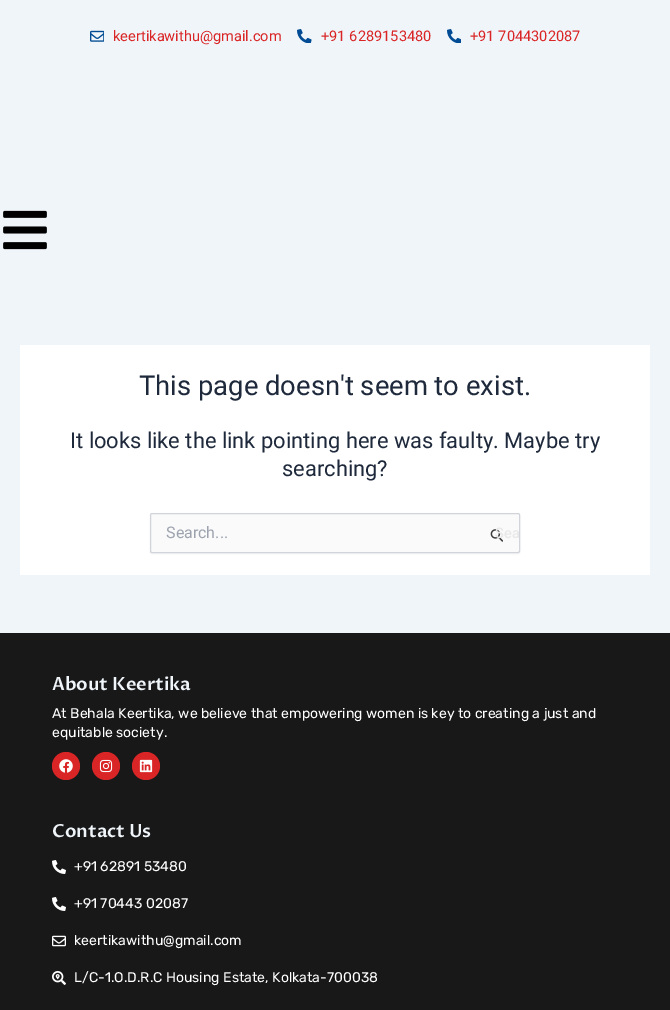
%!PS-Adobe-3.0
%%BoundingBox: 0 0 670 1010
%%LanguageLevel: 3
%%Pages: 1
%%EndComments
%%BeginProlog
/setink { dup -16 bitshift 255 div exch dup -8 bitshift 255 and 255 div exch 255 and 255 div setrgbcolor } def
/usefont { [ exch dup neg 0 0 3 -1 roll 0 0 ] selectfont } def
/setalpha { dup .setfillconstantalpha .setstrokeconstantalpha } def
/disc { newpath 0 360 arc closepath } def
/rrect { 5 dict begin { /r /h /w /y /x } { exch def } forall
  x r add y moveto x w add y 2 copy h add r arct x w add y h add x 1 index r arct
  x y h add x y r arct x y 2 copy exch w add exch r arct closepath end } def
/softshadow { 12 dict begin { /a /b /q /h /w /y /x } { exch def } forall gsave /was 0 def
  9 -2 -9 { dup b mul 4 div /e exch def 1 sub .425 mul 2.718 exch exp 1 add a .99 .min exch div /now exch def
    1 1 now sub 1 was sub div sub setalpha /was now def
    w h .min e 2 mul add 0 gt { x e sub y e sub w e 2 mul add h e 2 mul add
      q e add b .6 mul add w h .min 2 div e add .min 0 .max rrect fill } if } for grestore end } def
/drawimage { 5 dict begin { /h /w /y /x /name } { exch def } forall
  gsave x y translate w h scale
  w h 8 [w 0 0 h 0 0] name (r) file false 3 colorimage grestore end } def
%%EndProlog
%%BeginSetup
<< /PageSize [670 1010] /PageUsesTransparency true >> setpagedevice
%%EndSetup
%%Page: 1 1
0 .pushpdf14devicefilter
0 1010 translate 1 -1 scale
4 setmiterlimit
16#F0F5FA setink
0 0 670 1010 rectfill
(img1.raw) 90 30 14 12 drawimage
/Roboto-Regular 14.6 usefont
16#D92525 setink
113 41 moveto (keertikawithu@gmail.com) show
(img2.raw) 297 29 15 14 drawimage
321 41 moveto (+91 6289153480) show
(img3.raw) 447 29 14 14 drawimage
470 41 moveto (+91 7044302087) show
(img4.raw) 3 210 44 40 drawimage
16#FFFFFF setink
20 345 630 230 rectfill
/Roboto-Regular 27.4 usefont
16#1E293B setink
139 395 moveto (This page doesn't seem to exist.) show
/Roboto-Regular 21.9 usefont
70 448 moveto (It looks like the link pointing here was faulty. Maybe try) show
282 476 moveto (searching?) show
16#000000 setink
150 514 370 40 2 1 0.05 softshadow
16#FAFAFA setink
150.5 513.5 369 39 1.5 rrect gsave fill grestore
16#D1D5DB setink
stroke
/Roboto-Regular 16 usefont
16#9CA3AF setink
166 538 moveto (Search...) show
(img5.raw) 490 529 13 13 drawimage
/Roboto-Medium 14.6 usefont
16#E8E8E8 setink
495 538 moveto (Sea) show
16#181819 setink
0 633 670 377 rectfill
/ProzaLibre-SemiBold 18 usefont
16#F0F5FA setink
52 690 moveto (About Keertika) show
/Rubik-Regular 14 usefont
16#FFFFFF setink
52 718 moveto (At Behala Keertika, we believe that empowering women is key to creating a just and) show
52 737 moveto (equitable society.) show
16#D92525 setink
66 766 14 disc fill
(img6.raw) 59 759 14 14 drawimage
106 766 14 disc fill
(img7.raw) 99 759 14 14 drawimage
146 766 14 disc fill
(img8.raw) 139 759 14 14 drawimage
/ProzaLibre-SemiBold 18 usefont
16#F0F5FA setink
52 837 moveto (Contact Us) show
(img9.raw) 52 860 14 14 drawimage
/Rubik-Regular 14 usefont
16#FFFFFF setink
74 871 moveto (+91 62891 53480) show
(img9.raw) 52 897 14 14 drawimage
74 908 moveto (+91 70443 02087) show
(img10.raw) 52 935 14 12 drawimage
74 945 moveto (keertikawithu@gmail.com) show
(img11.raw) 52 971 14 14 drawimage
74 982 moveto (L/C-1.O.D.R.C Housing Estate, Kolkata-700038) show
.poppdf14devicefilter showpage
%%EOF
